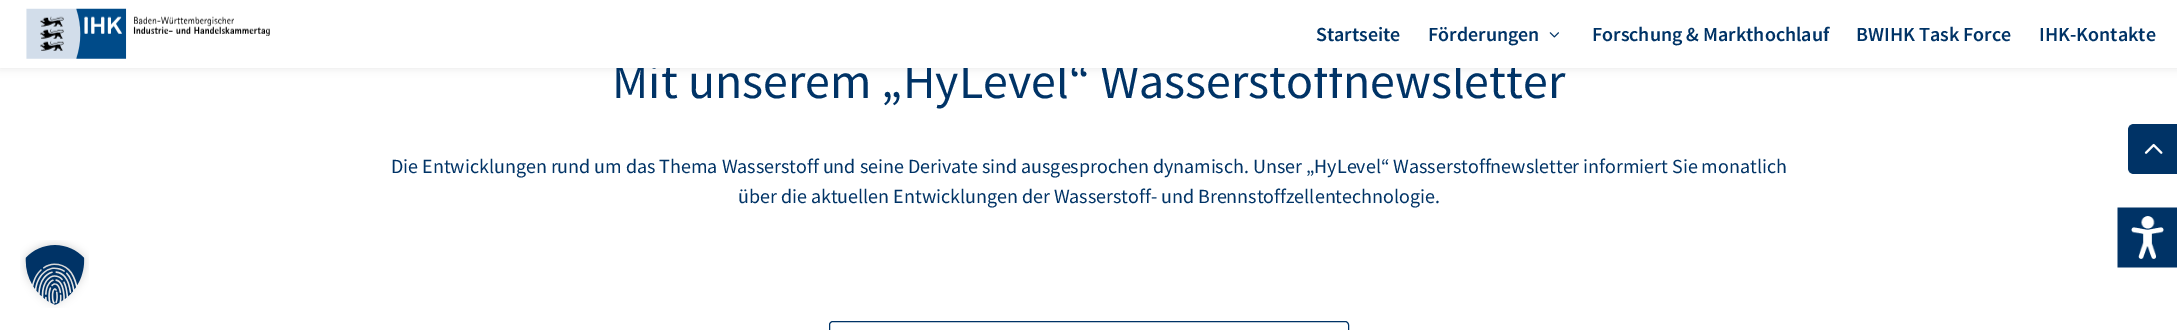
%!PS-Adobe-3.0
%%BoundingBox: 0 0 2177 330
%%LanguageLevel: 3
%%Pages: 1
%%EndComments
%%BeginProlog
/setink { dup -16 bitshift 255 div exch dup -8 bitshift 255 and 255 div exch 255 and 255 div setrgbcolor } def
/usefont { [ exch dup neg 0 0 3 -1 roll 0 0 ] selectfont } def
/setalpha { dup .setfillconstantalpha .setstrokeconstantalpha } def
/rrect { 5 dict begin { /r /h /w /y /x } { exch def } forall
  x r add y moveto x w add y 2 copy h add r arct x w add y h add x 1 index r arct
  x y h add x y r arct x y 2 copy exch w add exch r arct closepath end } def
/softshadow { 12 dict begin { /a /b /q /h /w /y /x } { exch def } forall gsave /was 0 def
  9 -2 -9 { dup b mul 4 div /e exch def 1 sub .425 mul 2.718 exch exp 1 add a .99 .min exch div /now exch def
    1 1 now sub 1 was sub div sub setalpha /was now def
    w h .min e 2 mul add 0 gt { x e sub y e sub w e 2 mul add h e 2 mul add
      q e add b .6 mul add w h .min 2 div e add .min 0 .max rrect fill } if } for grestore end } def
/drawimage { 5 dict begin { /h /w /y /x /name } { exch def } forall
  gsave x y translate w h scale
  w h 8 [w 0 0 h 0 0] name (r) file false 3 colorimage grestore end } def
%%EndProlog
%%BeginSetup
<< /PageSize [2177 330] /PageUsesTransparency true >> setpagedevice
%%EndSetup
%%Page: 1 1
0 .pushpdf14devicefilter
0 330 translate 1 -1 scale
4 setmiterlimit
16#FFFFFF setink
0 0 2177 330 rectfill
16#000000 setink
0 0 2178 68 0 4.5 0.1 softshadow
/SourceSansPro-Regular 50 usefont
16#003366 setink
612 98 moveto (Mit unserem „HyLevel“ Wasserstoffnewsletter) show
16#FFFFFF setink
0 0 2177 68 rectfill
(img1.raw) 26 8 244 51 drawimage
/SourceSansPro-SemiBold 20 usefont
16#003366 setink
1316 41 moveto (Startseite) show
1428 41 moveto (Förderungen) show
(img2.raw) 1549 32 10 6 drawimage
[
    [(Forschung & Markthochlauf) 1592 41]
    [(BWIHK Task Force) 1856 41]
    [(IHK-Kontakte) 2039 41]
] { aload pop moveto show } forall
/SourceSansPro-Regular 20 usefont
391 173 moveto (Die Entwicklungen rund um das Thema Wasserstoff und seine Derivate sind ausgesprochen dynamisch. Unser „HyLevel“ Wasserstoffnewsletter informiert Sie monatlich) show
738 203 moveto (über die aktuellen Entwicklungen der Wasserstoff- und Brennstoffzellentechnologie.) show
829.5 321.5 519 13 3.5 rrect stroke
2134 124 moveto 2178 124 lineto 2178 174 lineto 2134 174 lineto 2130.5 174 2128 171.5 2128 168 curveto 2128 130 lineto 2128 126.5 2130.5 124 2134 124 curveto closepath fill
(img3.raw) 2144 143 19 11 drawimage
(img4.raw) 20 240 69 68 drawimage
(img5.raw) 2117 207 60 61 drawimage
.poppdf14devicefilter showpage
%%EOF
